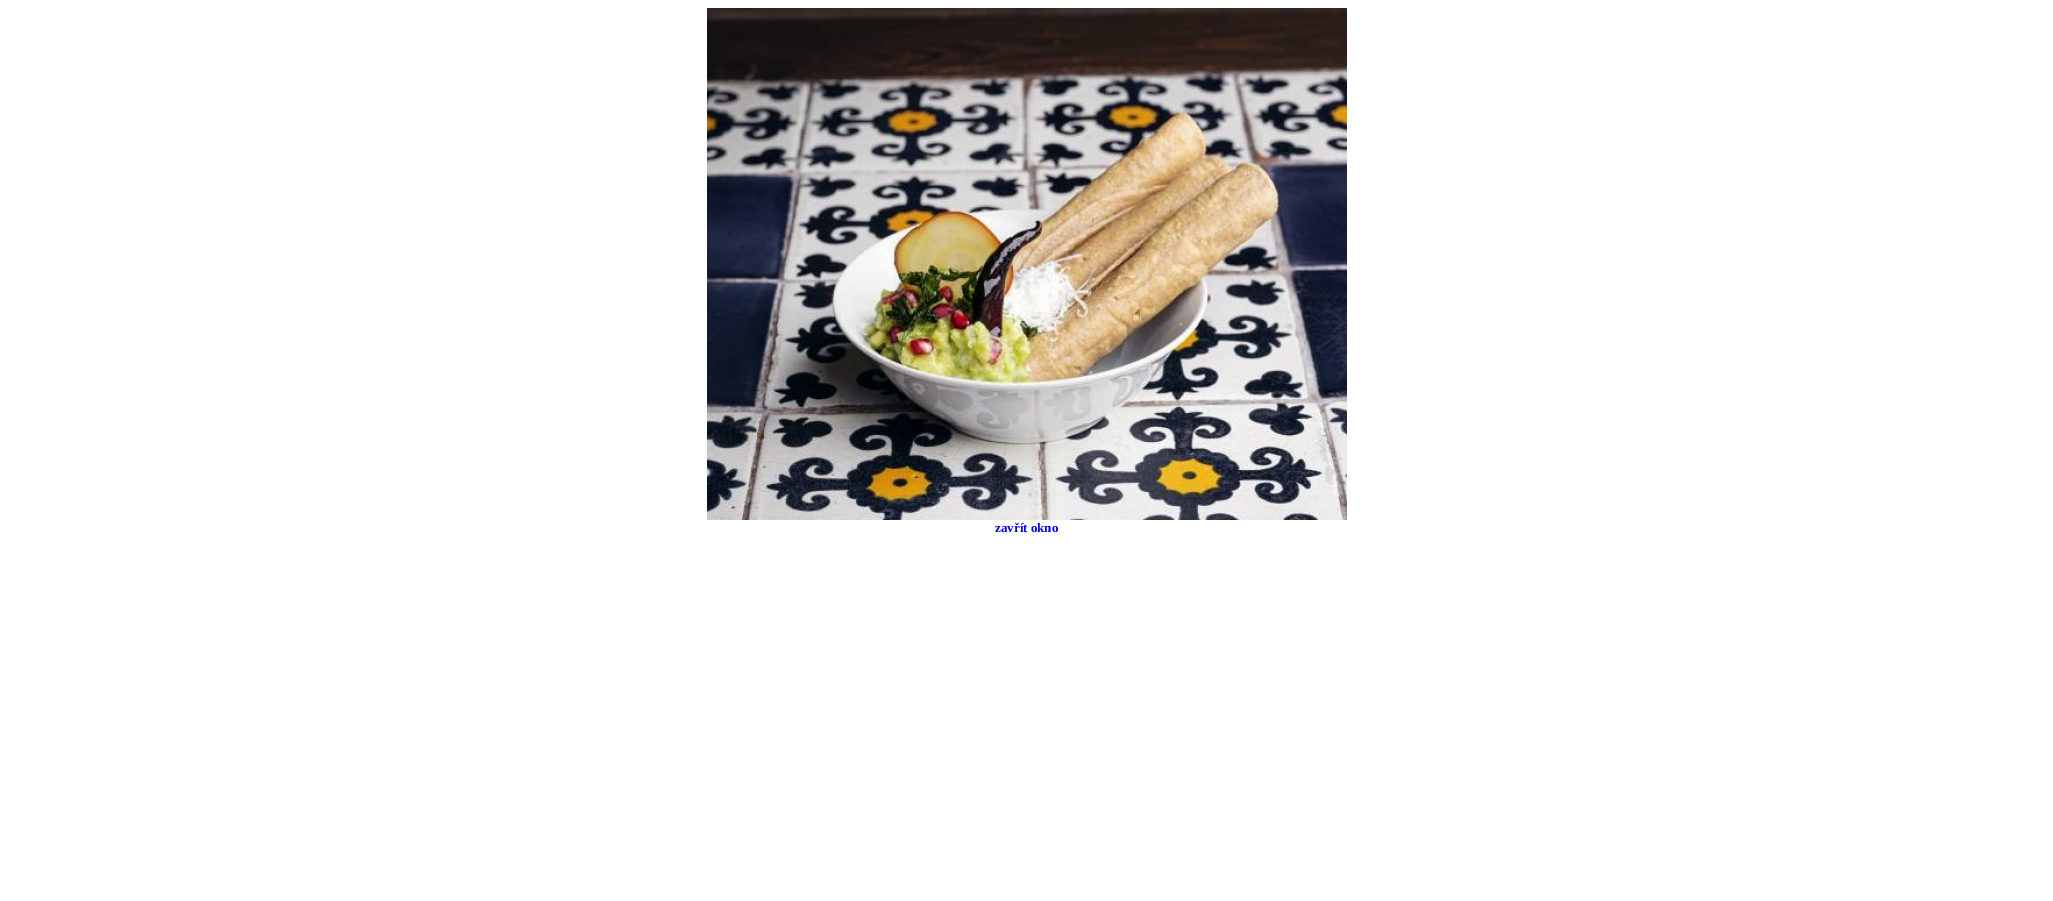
%!PS-Adobe-3.0
%%BoundingBox: 0 0 2053 901
%%LanguageLevel: 3
%%Pages: 1
%%EndComments
%%BeginProlog
/setink { dup -16 bitshift 255 div exch dup -8 bitshift 255 and 255 div exch 255 and 255 div setrgbcolor } def
/usefont { [ exch dup neg 0 0 3 -1 roll 0 0 ] selectfont } def
/drawimage { 5 dict begin { /h /w /y /x /name } { exch def } forall
  gsave x y translate w h scale
  w h 8 [w 0 0 h 0 0] name (r) file false 3 colorimage grestore end } def
%%EndProlog
%%BeginSetup
<< /PageSize [2053 901] >> setpagedevice
%%EndSetup
%%Page: 1 1
0 901 translate 1 -1 scale
4 setmiterlimit
16#FFFFFF setink
0 0 2053 901 rectfill
(img1.raw) 707 8 640 512 drawimage
/LiberationSerif-Bold 13 usefont
16#0000EE setink
995 532 moveto (zavřít okno) show
showpage
%%EOF
